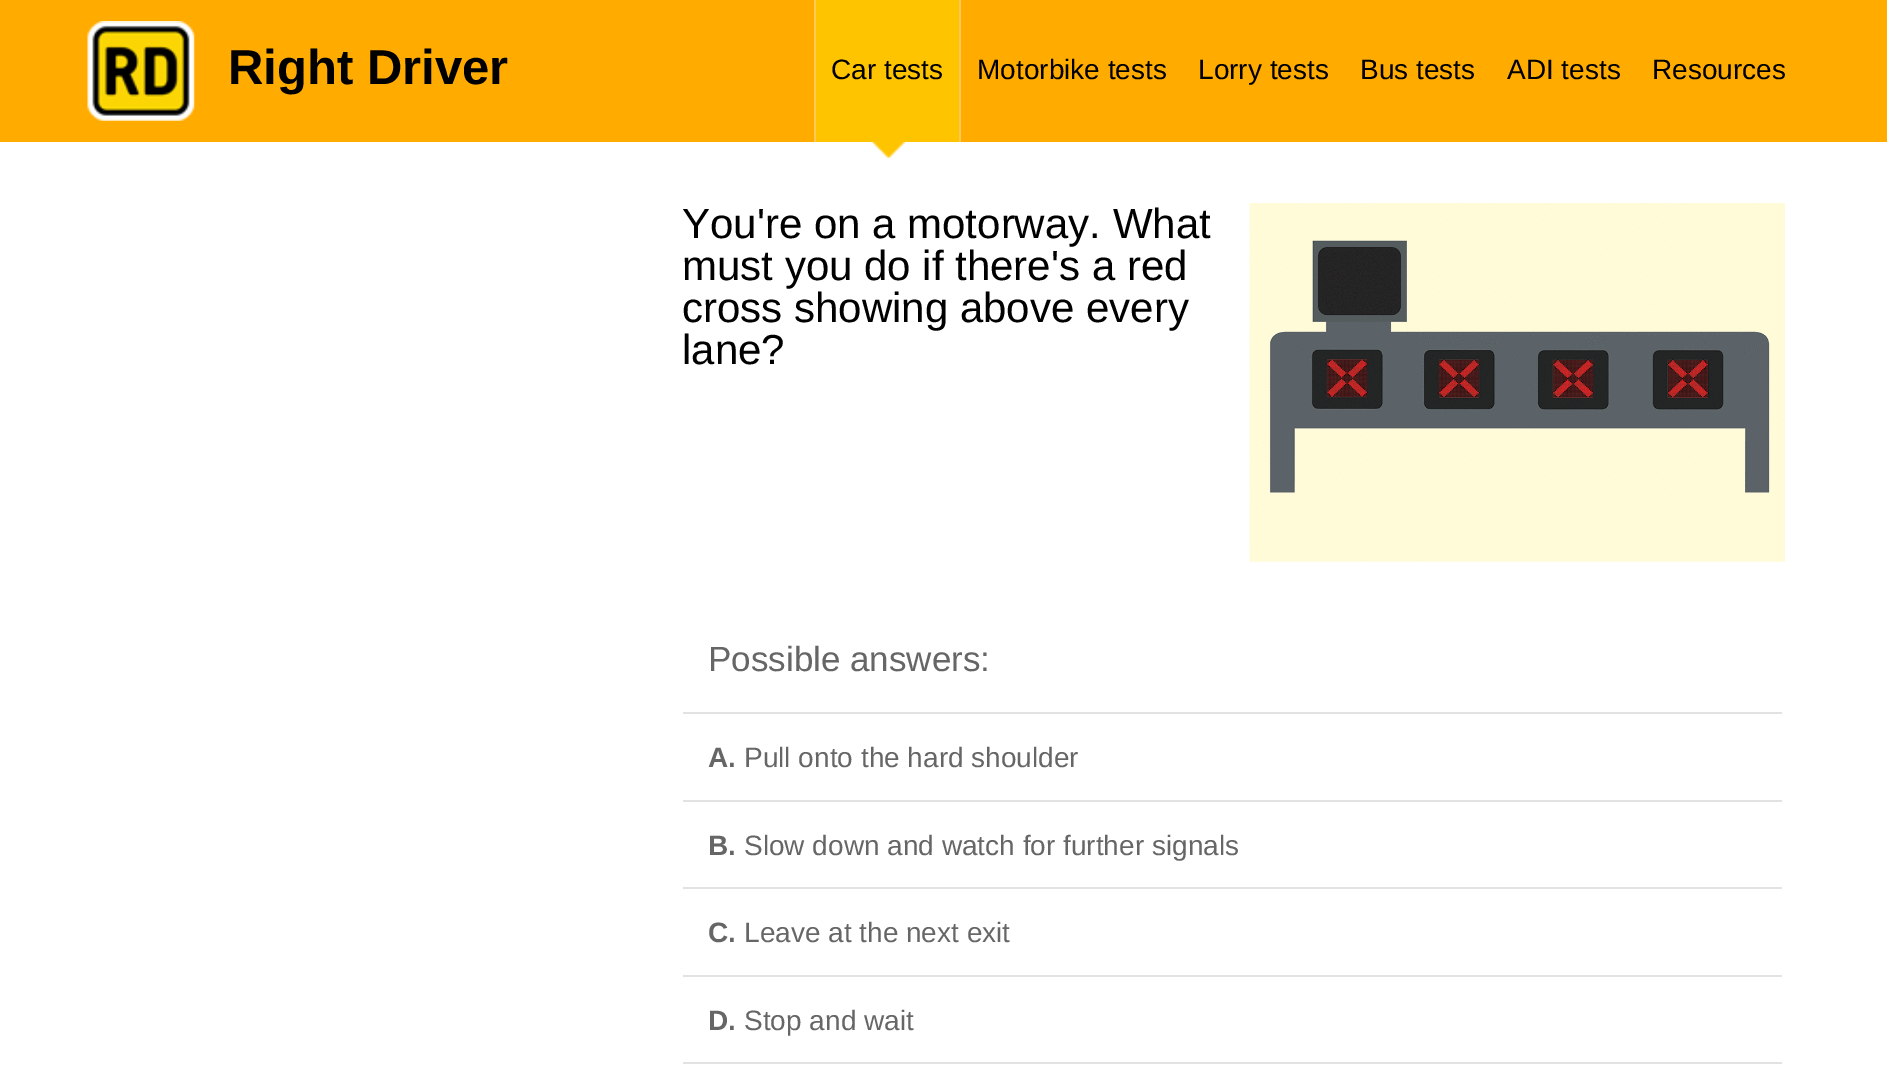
%!PS-Adobe-3.0
%%BoundingBox: 0 0 1887 1066
%%LanguageLevel: 3
%%Pages: 1
%%EndComments
%%BeginProlog
/setink { dup -16 bitshift 255 div exch dup -8 bitshift 255 and 255 div exch 255 and 255 div setrgbcolor } def
/usefont { [ exch dup neg 0 0 3 -1 roll 0 0 ] selectfont } def
/drawimage { 5 dict begin { /h /w /y /x /name } { exch def } forall
  gsave x y translate w h scale
  w h 8 [w 0 0 h 0 0] name (r) file false 3 colorimage grestore end } def
%%EndProlog
%%BeginSetup
<< /PageSize [1887 1066] >> setpagedevice
%%EndSetup
%%Page: 1 1
0 1066 translate 1 -1 scale
4 setmiterlimit
16#FFFFFF setink
0 0 1887 1066 rectfill
16#FFAB00 setink
0 0 1887 142 rectfill
(img1.raw) 87 21 108 100 drawimage
/LiberationSans-Bold 49 usefont
16#000000 setink
228 84 moveto (Right Driver) show
(img2.raw) 871 142 34 18 drawimage
[
    [816 0 143 142 16#FFC400]
    [959 0 2 142 16#FFC857]
    [814 0 2 142 16#FFC857]
] { aload pop setink rectfill } forall
/LiberationSans-Regular 28 usefont
16#000000 setink
[
    [(Car tests) 831 79]
    [(Motorbike tests) 977 79]
    [(Lorry tests) 1198 79]
    [(Bus tests) 1360 79]
    [(ADI tests) 1507 79]
    [(Resources) 1652 79]
] { aload pop moveto show } forall
/LiberationSans-Regular 42 usefont
[
    [(You're on a motorway. What) 682 238]
    [(must you do if there's a red) 682 280]
    [(cross showing above every) 682 322]
    [(lane?) 682 364]
] { aload pop moveto show } forall
(img3.raw) 1249 203 536 359 drawimage
16#E2E2E2 setink
683 712 1099 2 rectfill
/LiberationSans-Regular 35 usefont
16#666666 setink
708 671 moveto (Possible answers:) show
16#E2E2E2 setink
683 800 1099 2 rectfill
/LiberationSans-Bold 28 usefont
16#666666 setink
708 767 moveto (A.) show
/LiberationSans-Regular 28 usefont
744 767 moveto (Pull onto the hard shoulder) show
16#E2E2E2 setink
683 887 1099 2 rectfill
/LiberationSans-Bold 28 usefont
16#666666 setink
708 855 moveto (B.) show
/LiberationSans-Regular 28 usefont
744 855 moveto (Slow down and watch for further signals) show
16#E2E2E2 setink
683 975 1099 2 rectfill
/LiberationSans-Bold 28 usefont
16#666666 setink
708 942 moveto (C.) show
/LiberationSans-Regular 28 usefont
744 942 moveto (Leave at the next exit) show
16#E2E2E2 setink
683 1062 1099 2 rectfill
/LiberationSans-Bold 28 usefont
16#666666 setink
708 1030 moveto (D.) show
/LiberationSans-Regular 28 usefont
744 1030 moveto (Stop and wait) show
showpage
%%EOF
